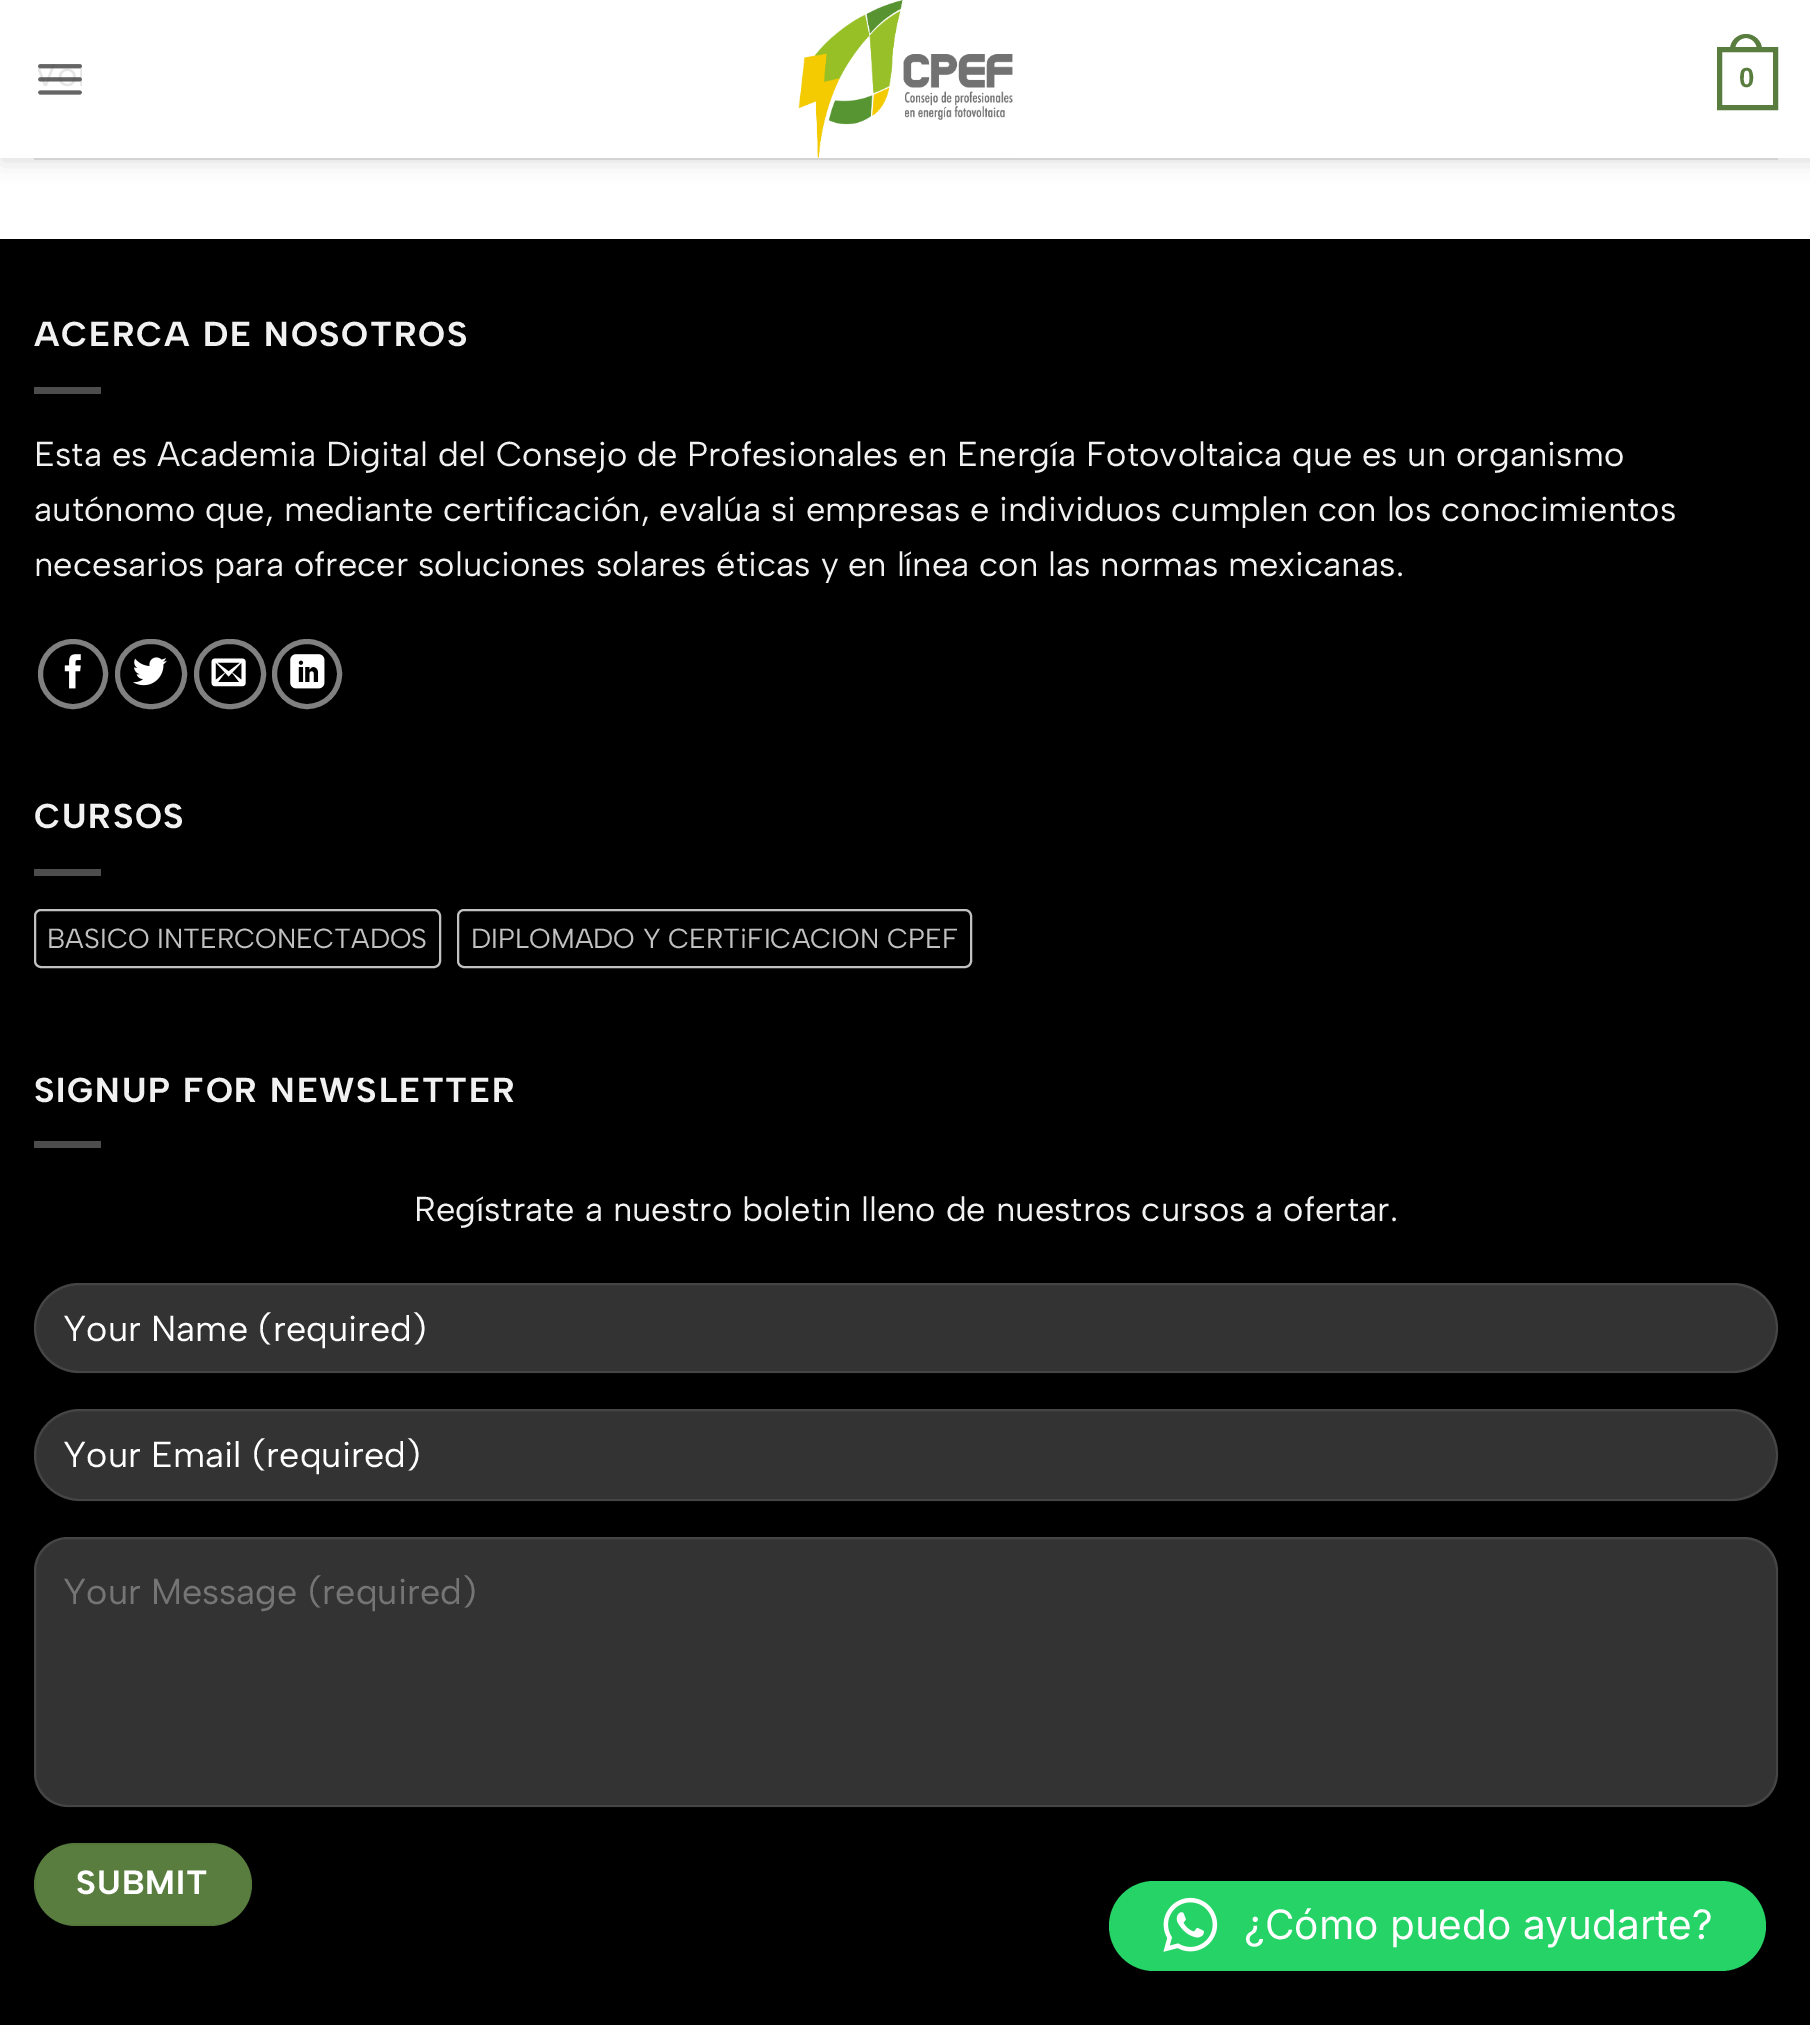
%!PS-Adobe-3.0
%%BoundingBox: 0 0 1810 2025
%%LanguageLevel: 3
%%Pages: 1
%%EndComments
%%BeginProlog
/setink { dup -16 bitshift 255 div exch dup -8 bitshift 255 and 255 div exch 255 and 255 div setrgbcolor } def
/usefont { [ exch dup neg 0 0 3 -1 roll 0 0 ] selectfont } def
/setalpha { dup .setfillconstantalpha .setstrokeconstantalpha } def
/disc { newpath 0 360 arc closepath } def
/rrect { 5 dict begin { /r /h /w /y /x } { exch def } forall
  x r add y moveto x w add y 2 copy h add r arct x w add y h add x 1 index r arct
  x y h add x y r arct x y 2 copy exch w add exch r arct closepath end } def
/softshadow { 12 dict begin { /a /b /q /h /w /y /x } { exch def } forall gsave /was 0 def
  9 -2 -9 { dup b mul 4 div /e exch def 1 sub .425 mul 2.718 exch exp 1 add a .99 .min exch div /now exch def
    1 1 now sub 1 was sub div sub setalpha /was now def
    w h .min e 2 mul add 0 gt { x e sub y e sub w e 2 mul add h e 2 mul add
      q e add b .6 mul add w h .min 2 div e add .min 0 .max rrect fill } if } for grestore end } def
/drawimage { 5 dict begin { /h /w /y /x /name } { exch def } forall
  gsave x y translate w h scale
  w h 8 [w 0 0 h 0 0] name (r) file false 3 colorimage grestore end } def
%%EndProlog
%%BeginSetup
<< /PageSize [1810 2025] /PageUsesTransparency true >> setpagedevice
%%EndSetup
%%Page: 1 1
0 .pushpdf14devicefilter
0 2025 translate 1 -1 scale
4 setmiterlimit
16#FFFFFF setink
0 0 1810 2025 rectfill
gsave
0 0 moveto 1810 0 lineto 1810 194 lineto 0 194 lineto closepath 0 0 moveto 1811 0 lineto 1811 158 lineto 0 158 lineto closepath eoclip newpath
16#000000 setink
2 2 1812 158 0 11 0.15 softshadow
grestore
(img1.raw) 38 64 44 31 drawimage
0.9 setalpha
0 157 1810 1 rectfill
1 setalpha
(img2.raw) 798 0 215 158 drawimage
16#597D3F setink
5 setlinewidth
1719.5 49.5 56 58 rectstroke
1746 34 moveto 1754.5 34 1762 41 1762 49.5 curveto 1762 52 lineto 1730 52 lineto 1730 49.5 lineto 1730 41 1737.5 34 1746 34 curveto closepath 1746 38 moveto 1752 38 1757 43.5 1757 49.5 curveto 1757 52 lineto 1735 52 lineto 1735 49.5 lineto 1735 43.5 1740 38 1746 38 curveto closepath eofill
/LiberationSans-Bold 27.6 usefont
1739 87 moveto (0) show
16#D3D3D3 setink
34 158 1744 2 rectfill
16#000000 setink
0 239 1810 1786 rectfill
/AlbertSans-Bold 34.55 usefont
16#F1F1F1 setink
34 346 moveto 1.75 0 (ACERCA DE NOSOTROS) ashow
16#4D4D4D setink
34 387 67 7 rectfill
/AlbertSans-Regular 34.55 usefont
16#F1F1F1 setink
[
    [(Esta es Academia Digital del Consejo de Profesionales en Energía Fotovoltaica que es un organismo) 34 466]
    [(autónomo que, mediante certificación, evalúa si empresas e individuos cumplen con los conocimientos) 34 521]
    [(necesarios para ofrecer soluciones solares éticas y en línea con las normas mexicanas.) 34 576]
] { aload pop moveto show } forall
16#808080 setink
73 674 32.5 disc stroke
(img3.raw) 64 654 17 35 drawimage
117.5 641.5 67 65 32.5 rrect stroke
(img4.raw) 133 657 34 29 drawimage
196.5 641.5 67 65 32.5 rrect stroke
(img5.raw) 211 658 35 29 drawimage
307 674 32.5 disc stroke
(img6.raw) 290 654 35 35 drawimage
/AlbertSans-Bold 34.55 usefont
16#F1F1F1 setink
34 828 moveto 1.75 0 (CURSOS) ashow
16#4D4D4D setink
34 869 67 7 rectfill
16#C1C1C1 setink
2 setlinewidth
35 910 405 57 6 rrect stroke
/AlbertSans-Regular 27.6 usefont
47 948 moveto (BASICO INTERCONECTADOS) show
458 910 513 57 6 rrect stroke
471 948 moveto (DIPLOMADO Y CERTiFICACION CPEF) show
/AlbertSans-Bold 34.55 usefont
16#F1F1F1 setink
34 1102 moveto 1.75 0 (SIGNUP FOR NEWSLETTER) ashow
16#4D4D4D setink
34 1141 67 7 rectfill
/AlbertSans-Regular 34.55 usefont
16#F1F1F1 setink
414 1221 moveto (Regístrate a nuestro boletin lleno de nuestros cursos a ofertar.) show
16#333333 setink
34 1283 1744 90 45 rrect fill
0.09 setalpha
16#FFFFFF setink
35 1284 1742 88 44 rrect stroke
/AlbertSans-Regular 36 usefont
1 setalpha
63 1341 moveto (Your Name \(required\)) show
16#333333 setink
34 1409 1744 92 46 rrect fill
0.09 setalpha
16#FFFFFF setink
35 1410 1742 90 45 rrect stroke
1 setalpha
63 1467 moveto (Your Email \(required\)) show
16#333333 setink
34 1537 1744 270 34 rrect fill
0.09 setalpha
16#FFFFFF setink
35 1538 1742 268 33 rrect stroke
1 setalpha
16#757575 setink
63 1604 moveto (Your Message \(required\)) show
16#597D3F setink
34 1843 218 83 41.5 rrect fill
0.05 setalpha
16#000000 setink
35 1844 216 81 rectstroke
/AlbertSans-Bold 33.5 usefont
1 setalpha
16#FFFFFF setink
76 1894 moveto 1 0 (SUBMIT) ashow
16#25D366 setink
1109 1881 657 90 45 rrect fill
(img7.raw) 1163 1897 55 55 drawimage
/Inter-Regular 40.5 usefont
16#FFFFFF setink
1244 1939 moveto (¿Cómo puedo ayudarte?) show
.poppdf14devicefilter showpage
%%EOF
